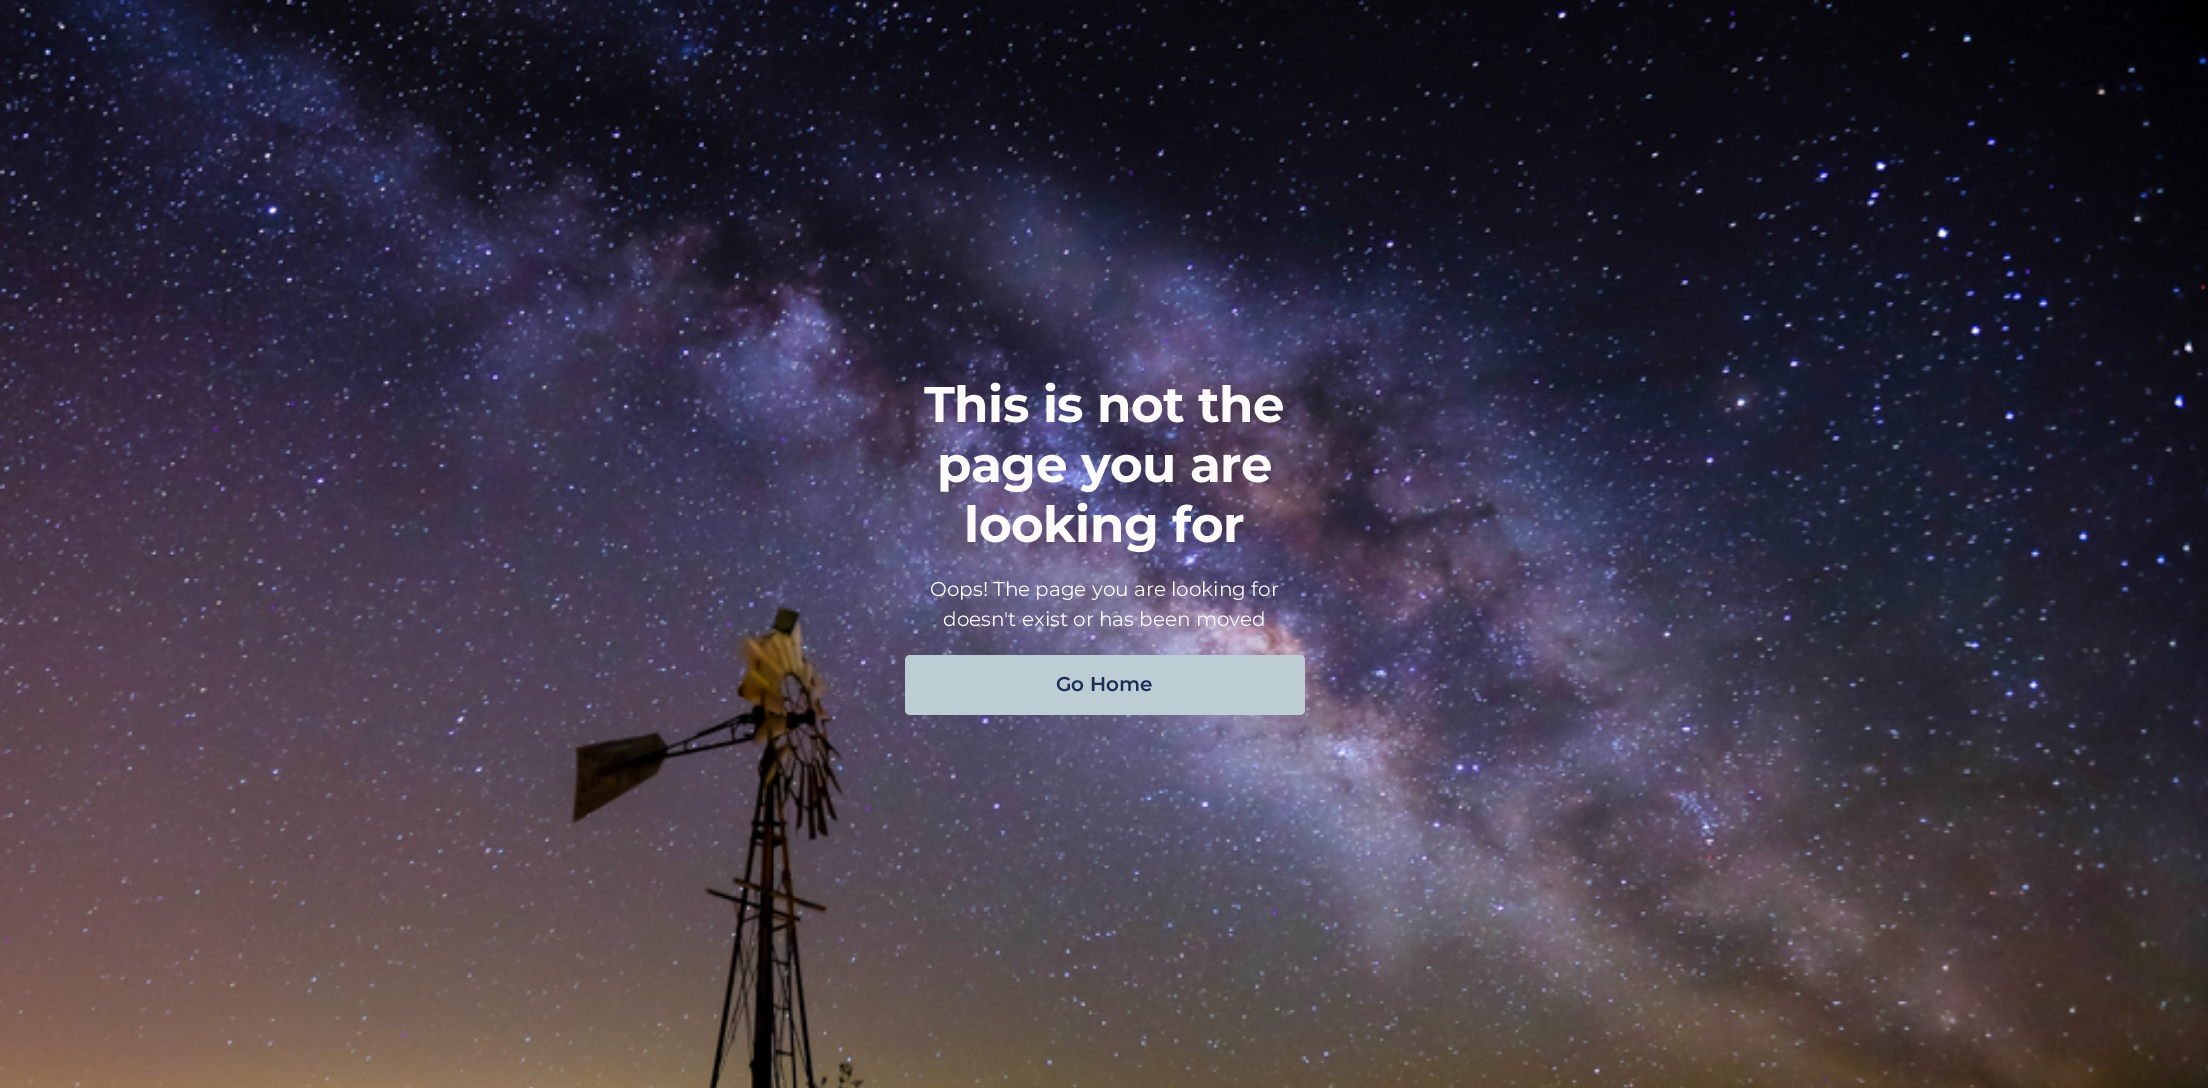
%!PS-Adobe-3.0
%%BoundingBox: 0 0 2208 1088
%%LanguageLevel: 3
%%Pages: 1
%%EndComments
%%BeginProlog
/setink { dup -16 bitshift 255 div exch dup -8 bitshift 255 and 255 div exch 255 and 255 div setrgbcolor } def
/usefont { [ exch dup neg 0 0 3 -1 roll 0 0 ] selectfont } def
/rrect { 5 dict begin { /r /h /w /y /x } { exch def } forall
  x r add y moveto x w add y 2 copy h add r arct x w add y h add x 1 index r arct
  x y h add x y r arct x y 2 copy exch w add exch r arct closepath end } def
/drawimage { 5 dict begin { /h /w /y /x /name } { exch def } forall
  gsave x y translate w h scale
  w h 8 [w 0 0 h 0 0] name (r) file false 3 colorimage grestore end } def
%%EndProlog
%%BeginSetup
<< /PageSize [2208 1088] >> setpagedevice
%%EndSetup
%%Page: 1 1
0 1088 translate 1 -1 scale
4 setmiterlimit
16#FFFFFF setink
0 0 2208 1088 rectfill
(img1.raw) 0 0 2208 1088 drawimage
/Montserrat-Bold 50 usefont
16#FCFBFA setink
924 422 moveto -0.5 0 (This is not the) ashow
937 482 moveto -0.5 0 (page you are) ashow
964 542 moveto -0.5 0 (looking for) ashow
/Montserrat-Regular 20 usefont
930 596 moveto (Oops! The page you are looking for) show
943 626 moveto (doesn't exist or has been moved) show
16#BCCDD3 setink
905 655 400 60 5 rrect fill
/Montserrat-SemiBold 20 usefont
16#1B2D59 setink
1056 691 moveto (Go Home) show
showpage
%%EOF
